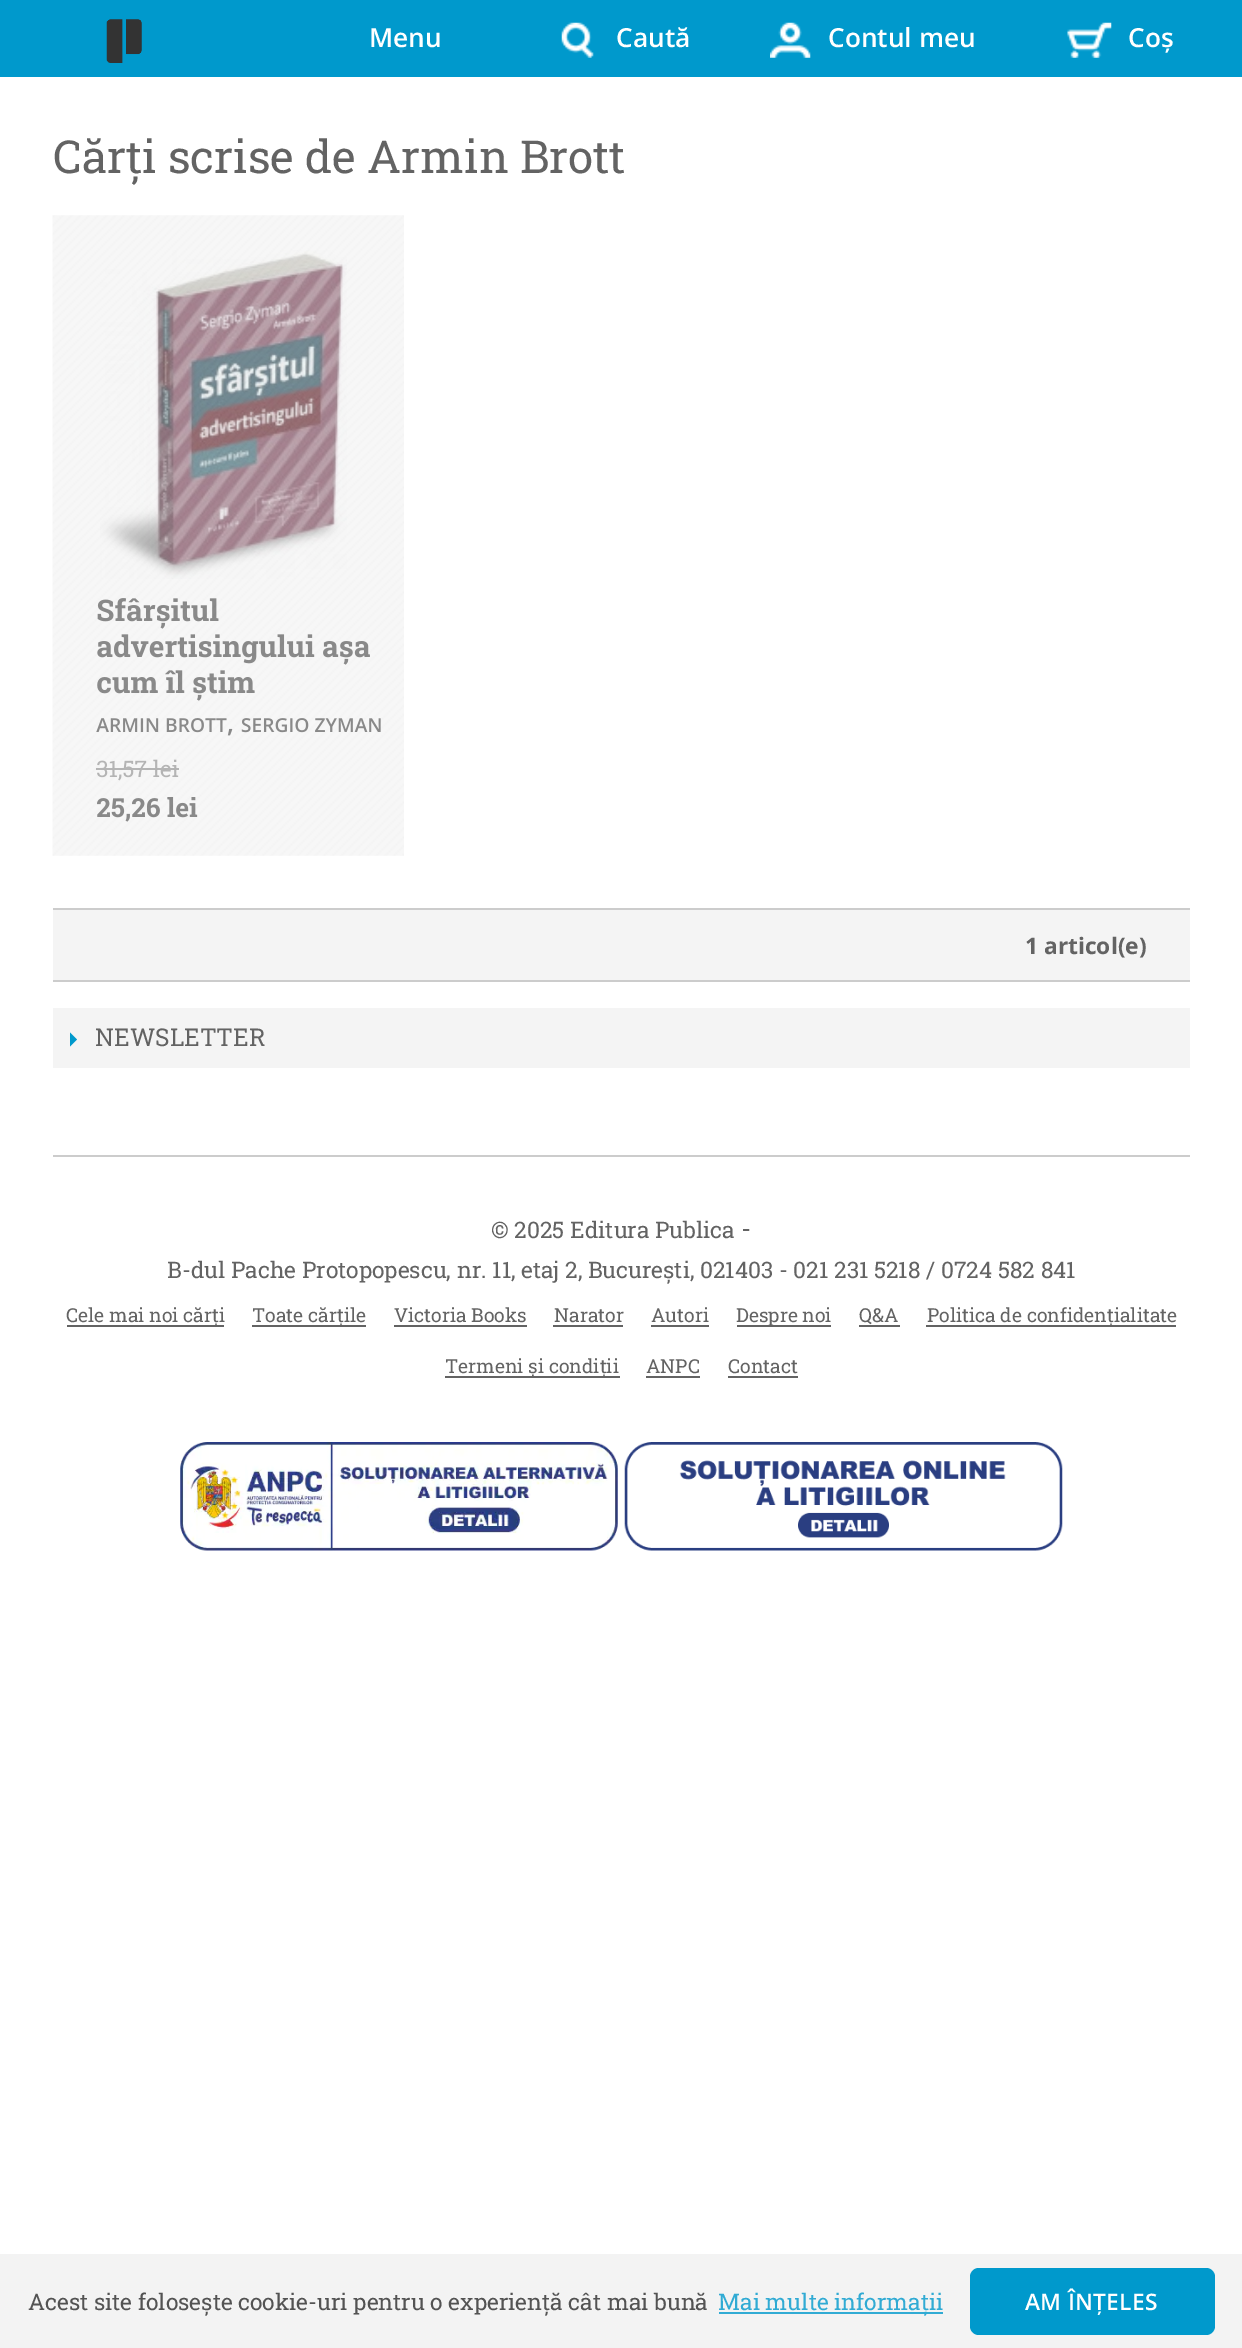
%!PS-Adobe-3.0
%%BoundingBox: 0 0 1242 2348
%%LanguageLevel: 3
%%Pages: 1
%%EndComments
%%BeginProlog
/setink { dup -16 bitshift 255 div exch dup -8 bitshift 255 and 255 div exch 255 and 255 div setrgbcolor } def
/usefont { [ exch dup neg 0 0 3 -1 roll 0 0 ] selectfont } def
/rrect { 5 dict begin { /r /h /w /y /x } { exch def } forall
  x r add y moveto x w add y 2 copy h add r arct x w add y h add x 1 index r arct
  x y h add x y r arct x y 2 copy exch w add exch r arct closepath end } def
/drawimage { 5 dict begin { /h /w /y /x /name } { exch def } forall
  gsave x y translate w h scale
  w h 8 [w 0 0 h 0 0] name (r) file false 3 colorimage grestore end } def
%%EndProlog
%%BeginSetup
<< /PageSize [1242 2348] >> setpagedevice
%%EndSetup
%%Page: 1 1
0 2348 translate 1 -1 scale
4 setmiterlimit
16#FFFFFF setink
0 0 1242 2348 rectfill
16#0099CC setink
0 0 1242 77 rectfill
(img1.raw) 106 19 36 44 drawimage
/OpenSans-SemiBold 26.25 usefont
16#FFFFFF setink
369 47 moveto (Menu) show
(img2.raw) 561 22 33 36 drawimage
616 47 moveto (Caută) show
(img3.raw) 770 22 41 36 drawimage
828 47 moveto (Contul meu) show
(img4.raw) 1067 22 45 36 drawimage
1128 47 moveto (Coș) show
/RobotoSlab-Regular 45.5 usefont
16#636363 setink
53 173 moveto (Cărți scrise de Armin Brott) show
(img6.raw) 100 250 247 329 drawimage
/RobotoSlab-Bold 29.75 usefont
[
    [(Sfârșitul) 96 621]
    [(advertisingului așa) 96 657]
    [(cum îl știm) 96 693]
] { aload pop moveto show } forall
/OpenSans-SemiBold 19.25 usefont
96 732 moveto (ARMIN BROTT) show
/OpenSans-SemiBold 26.25 usefont
227 732 moveto (,) show
/OpenSans-SemiBold 19.25 usefont
241 732 moveto (SERGIO ZYMAN) show
/RobotoSlab-Regular 22.75 usefont
16#A0A0A0 setink
96 777 moveto (31,57 lei) show
96 768 83 2 rectfill
/RobotoSlab-Bold 26.25 usefont
16#636363 setink
96 817 moveto (25,26 lei) show
(img5.raw) 52 215 352 641 drawimage
[
    [53 910 1137 70 16#F4F4F4]
    [53 908 1137 2 16#CCCCCC]
    [53 980 1137 2 16#CCCCCC]
] { aload pop setink rectfill } forall
/OpenSans-Bold 22.75 usefont
16#636363 setink
1025 954 moveto (1 articol\(e\)) show
16#F4F4F4 setink
53 1008 1137 60 rectfill
16#0099CC setink
70 1046.5 moveto 70 1032.5 lineto 77 1039.5 lineto closepath fill
/RobotoSlab-Regular 24.5 usefont
16#636363 setink
95 1046 moveto (NEWSLETTER) show
16#CCCCCC setink
53 1155 1137 2 rectfill
/RobotoSlab-Regular 22.75 usefont
16#636363 setink
491 1238 moveto (© 2025 Editura Publica) show
/RobotoSlab-Regular 26.25 usefont
741 1238 moveto (-) show
/RobotoSlab-Regular 22.75 usefont
167 1278 moveto (B-dul Pache Protopopescu, nr. 11, etaj 2, București, 021403 - 021 231 5218 / 0724 582 841) show
67 1325 157 2 rectfill
/RobotoSlab-Regular 19.25 usefont
66 1322 moveto (Cele mai noi cărți) show
252 1325 114 2 rectfill
252 1322 moveto (Toate cărțile) show
394 1322 moveto (Victoria Books) show
394 1325 133 2 rectfill
554 1322 moveto (Narator) show
553 1325 70 2 rectfill
651 1322 moveto (Autori) show
651 1325 58 2 rectfill
737 1325 94 2 rectfill
736 1322 moveto (Despre noi) show
859 1322 moveto (Q&A) show
859 1325 41 2 rectfill
926 1325 250 2 rectfill
927 1322 moveto (Politica de confidențialitate) show
445 1376 175 2 rectfill
445 1373 moveto (Termeni și condiții) show
646 1373 moveto (ANPC) show
646 1376 54 2 rectfill
728 1373 moveto (Contact) show
728 1376 70 2 rectfill
(img7.raw) 180 1442 438 109 drawimage
(img8.raw) 624 1442 439 109 drawimage
16#F3F3F3 setink
0 2254 1242 94 rectfill
/RobotoSlab-Regular 22.75 usefont
16#535353 setink
28 2310 moveto (Acest site folosește cookie-uri pentru o experiență cât mai bună) show
16#31ABD4 setink
719 2312 224 2 rectfill
718 2310 moveto (Mai multe informații) show
16#0099CC setink
970 2268 245 67 9 rrect fill
/OpenSans-SemiBold 22.75 usefont
16#FFFFFF setink
1025 2310 moveto 0.25 0 (AM ÎNȚELES) ashow
showpage
%%EOF
